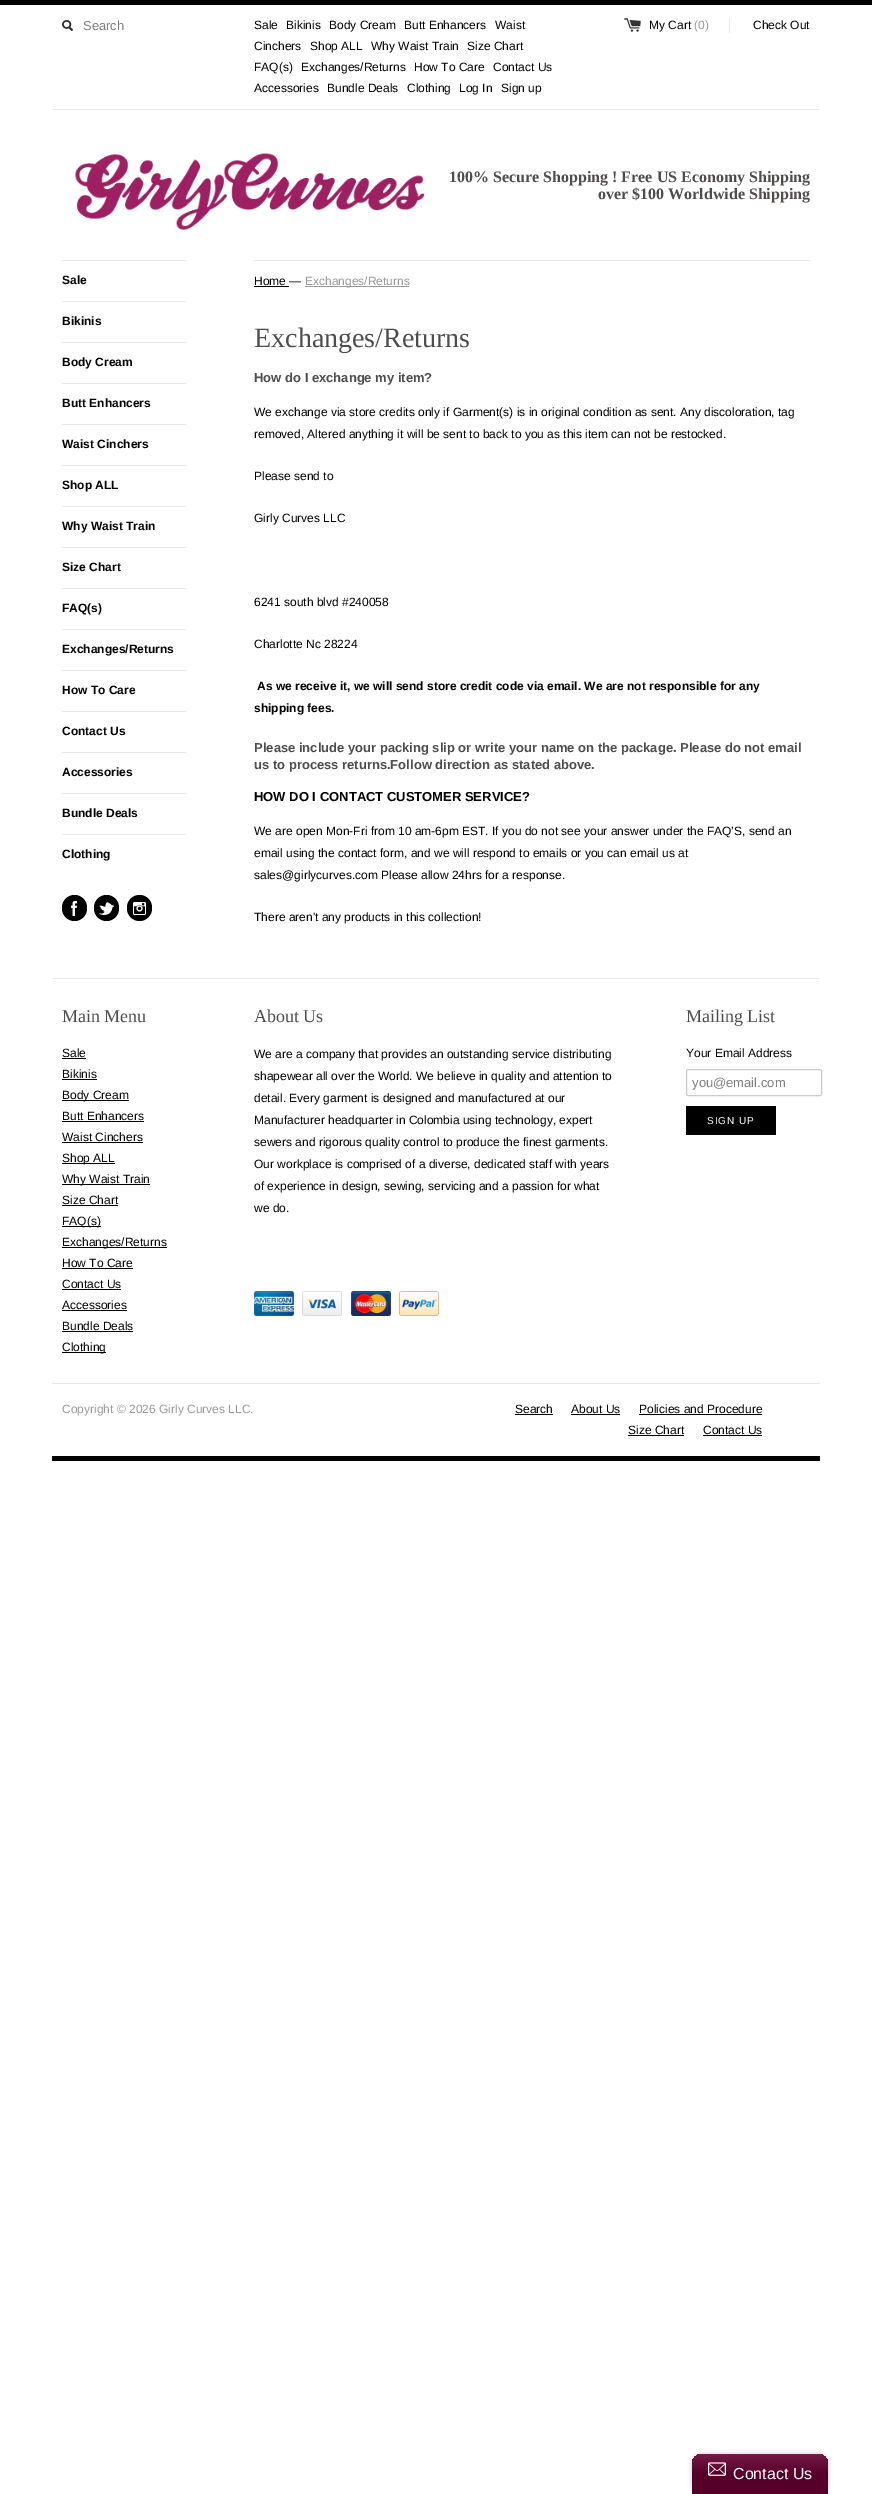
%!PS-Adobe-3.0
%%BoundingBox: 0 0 872 2494
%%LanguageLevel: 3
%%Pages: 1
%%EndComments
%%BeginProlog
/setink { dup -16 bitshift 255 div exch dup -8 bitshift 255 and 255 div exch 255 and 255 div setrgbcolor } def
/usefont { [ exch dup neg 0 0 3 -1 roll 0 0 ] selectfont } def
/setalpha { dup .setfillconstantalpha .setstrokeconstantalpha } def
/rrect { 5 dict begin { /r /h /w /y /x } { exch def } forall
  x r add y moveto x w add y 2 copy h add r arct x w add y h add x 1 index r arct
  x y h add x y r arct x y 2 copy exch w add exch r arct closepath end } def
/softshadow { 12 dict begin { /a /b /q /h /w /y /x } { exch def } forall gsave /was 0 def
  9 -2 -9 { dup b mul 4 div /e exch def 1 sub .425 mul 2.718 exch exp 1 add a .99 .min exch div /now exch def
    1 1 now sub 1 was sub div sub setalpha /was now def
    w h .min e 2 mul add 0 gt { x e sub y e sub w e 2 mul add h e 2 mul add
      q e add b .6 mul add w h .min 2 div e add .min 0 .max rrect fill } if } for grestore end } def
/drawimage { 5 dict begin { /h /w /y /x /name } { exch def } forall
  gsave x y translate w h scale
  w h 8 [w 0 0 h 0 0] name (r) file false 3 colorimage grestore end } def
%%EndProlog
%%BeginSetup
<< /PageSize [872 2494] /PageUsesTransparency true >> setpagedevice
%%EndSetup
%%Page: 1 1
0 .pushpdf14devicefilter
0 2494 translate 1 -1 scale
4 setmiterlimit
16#FFFFFF setink
0 0 872 2494 rectfill
16#000000 setink
0 0 872 5 rectfill
16#E8E8E8 setink
52 109 768 1 rectfill
(img1.raw) 62 20 11 11 drawimage
/LiberationSans-Regular 13 usefont
16#808080 setink
83 30 moveto (Search) show
/LiberationSans-Regular 12 usefont
16#000000 setink
[
    [(Sale) 254 29]
    [(Bikinis) 286 29]
    [(Body Cream) 329 29]
    [(Butt Enhancers) 404 29]
    [(Waist) 495 29]
    [(Cinchers) 254 50]
    [(Shop ALL) 310 50]
    [(Why Waist Train) 371 50]
    [(Size Chart) 467 50]
    [(FAQ\(s\)) 254 71]
    [(Exchanges/Returns) 301 71]
    [(How To Care) 414 71]
    [(Contact Us) 493 71]
    [(Accessories) 254 92]
    [(Bundle Deals) 327 92]
    [(Clothing) 407 92]
    [(Log In) 459 92]
    [(Sign up) 501 92]
] { aload pop moveto show } forall
(img2.raw) 624 18 17 14 drawimage
649 29 moveto (My Cart) show
16#999999 setink
694 29 moveto (\(0\)) show
16#E8E8E8 setink
729 18 1 15 rectfill
16#000000 setink
753 29 moveto (Check Out) show
(img3.raw) 75 153 350 77 drawimage
/LiberationSerif-Bold 16 usefont
16#4F4C4C setink
449 182 moveto (100% Secure Shopping ! Free US Economy Shipping) show
598 199 moveto (over $100 Worldwide Shipping) show
16#E8E8E8 setink
62 260 124 1 rectfill
/LiberationSans-Bold 12 usefont
16#000000 setink
62 284 moveto (Sale) show
16#E8E8E8 setink
62 301 124 1 rectfill
16#000000 setink
62 325 moveto (Bikinis) show
16#E8E8E8 setink
62 342 124 1 rectfill
16#000000 setink
62 366 moveto (Body Cream) show
16#E8E8E8 setink
62 383 124 1 rectfill
16#000000 setink
62 407 moveto (Butt Enhancers) show
16#E8E8E8 setink
62 424 124 1 rectfill
16#000000 setink
62 448 moveto (Waist Cinchers) show
16#E8E8E8 setink
62 465 124 1 rectfill
16#000000 setink
62 489 moveto (Shop ALL) show
16#E8E8E8 setink
62 506 124 1 rectfill
16#000000 setink
62 530 moveto (Why Waist Train) show
16#E8E8E8 setink
62 547 124 1 rectfill
16#000000 setink
62 571 moveto (Size Chart) show
16#E8E8E8 setink
62 588 124 1 rectfill
16#000000 setink
62 612 moveto (FAQ\(s\)) show
16#E8E8E8 setink
62 629 124 1 rectfill
16#000000 setink
62 653 moveto (Exchanges/Returns) show
16#E8E8E8 setink
62 670 124 1 rectfill
16#000000 setink
62 694 moveto (How To Care) show
16#E8E8E8 setink
62 711 124 1 rectfill
16#000000 setink
62 735 moveto (Contact Us) show
16#E8E8E8 setink
62 752 124 1 rectfill
16#000000 setink
62 776 moveto (Accessories) show
16#E8E8E8 setink
62 793 124 1 rectfill
16#000000 setink
62 817 moveto (Bundle Deals) show
16#E8E8E8 setink
62 834 124 1 rectfill
16#000000 setink
62 858 moveto (Clothing) show
62 895 25 26 12.5 rrect fill
(img4.raw) 71 901 6 15 drawimage
94 895 25 26 12.5 rrect fill
(img5.raw) 99 902 15 13 drawimage
127 895 25 26 12.5 rrect fill
(img6.raw) 133 902 13 13 drawimage
16#E8E8E8 setink
254 260 556 1 rectfill
/LiberationSans-Regular 12 usefont
16#000000 setink
254 285 moveto (Home —) show
254 286 35 1 rectfill
16#999999 setink
305 286 104 1 rectfill
305 285 moveto (Exchanges/Returns) show
/LiberationSerif-Regular 28 usefont
16#4F4C4C setink
254 347 moveto (Exchanges/Returns) show
/LiberationSans-Bold 13 usefont
254 382 moveto (How do I exchange my item?) show
/LiberationSans-Regular 12 usefont
16#000000 setink
[
    [(We exchange via store credits only if Garment\(s\) is in original condition as sent. Any discoloration, tag) 254 416]
    [(removed, Altered anything it will be sent to back to you as this item can not be restocked.) 254 438]
    [(Please send to) 254 480]
    [(Girly Curves LLC) 254 522]
    [(6241 south blvd #240058) 254 606]
    [(Charlotte Nc 28224) 254 648]
] { aload pop moveto show } forall
/LiberationSans-Bold 12 usefont
257 690 moveto (As we receive it, we will send store credit code via email. We are not responsible for any) show
254 712 moveto (shipping fees.) show
/LiberationSans-Bold 13 usefont
16#4F4C4C setink
254 752 moveto (Please include your packing slip or write your name on the package. Please do not email) show
254 769 moveto (us to process returns.Follow direction as stated above.) show
16#000000 setink
254 801 moveto (HOW DO I CONTACT CUSTOMER SERVICE?) show
/LiberationSans-Regular 12 usefont
[
    [(We are open Mon-Fri from 10 am-6pm EST. If you do not see your answer under the FAQ’S, send an) 254 835]
    [(email using the contact form, and we will respond to emails or you can email us at) 254 857]
    [(sales@girlycurves.com Please allow 24hrs for a response.) 254 879]
    [(There aren't any products in this collection!) 254 921]
] { aload pop moveto show } forall
52 1456 768 5 rectfill
16#E8E8E8 setink
52 978 768 1 rectfill
/LiberationSerif-Regular 18 usefont
16#4F4C4C setink
62 1022 moveto (Main Menu) show
/LiberationSans-Regular 12 usefont
16#000000 setink
62 1057 moveto (Sale) show
62 1058 24 1 rectfill
62 1078 moveto (Bikinis) show
62 1079 35 1 rectfill
62 1100 67 1 rectfill
62 1099 moveto (Body Cream) show
62 1120 moveto (Butt Enhancers) show
62 1121 82 1 rectfill
62 1141 moveto (Waist Cinchers) show
62 1142 81 1 rectfill
62 1163 53 1 rectfill
62 1162 moveto (Shop ALL) show
62 1184 88 1 rectfill
62 1183 moveto (Why Waist Train) show
62 1204 moveto (Size Chart) show
62 1205 56 1 rectfill
62 1226 39 1 rectfill
62 1225 moveto (FAQ\(s\)) show
62 1247 105 1 rectfill
62 1246 moveto (Exchanges/Returns) show
62 1267 moveto (How To Care) show
62 1268 71 1 rectfill
62 1288 moveto (Contact Us) show
62 1289 59 1 rectfill
62 1309 moveto (Accessories) show
62 1310 65 1 rectfill
62 1330 moveto (Bundle Deals) show
62 1331 71 1 rectfill
62 1352 44 1 rectfill
62 1351 moveto (Clothing) show
/LiberationSerif-Regular 18 usefont
16#4F4C4C setink
254 1022 moveto (About Us) show
/LiberationSans-Regular 12 usefont
16#000000 setink
[
    [(We are a company that provides an outstanding service distributing) 254 1058]
    [(shapewear all over the World. We believe in quality and attention to) 254 1080]
    [(detail. Every garment is designed and manufactured at our) 254 1102]
    [(Manufacturer headquarter in Colombia using technology, expert) 254 1124]
    [(sewers and rigorous quality control to produce the finest garments.) 254 1146]
    [(Our workplace is comprised of a diverse, dedicated staff with years) 254 1168]
    [(of experience in design, sewing, servicing and a passion for what) 254 1190]
    [(we do.) 254 1212]
] { aload pop moveto show } forall
(img7.raw) 254 1291 40 25 drawimage
(img8.raw) 302 1291 40 25 drawimage
(img9.raw) 351 1291 40 25 drawimage
(img10.raw) 399 1291 40 25 drawimage
/LiberationSerif-Regular 18 usefont
16#4F4C4C setink
686 1022 moveto (Mailing List) show
/LiberationSans-Regular 12 usefont
16#000000 setink
686 1057 moveto (Your Email Address) show
16#CCCCCC setink
686.5 1069.5 135 26 1.5 rrect stroke
/LiberationSans-Regular 13 usefont
16#808080 setink
692 1087 moveto (you@email.com) show
16#000000 setink
686 1106 90 29 rectfill
/LiberationSans-Regular 10 usefont
16#FFFFFF setink
707 1124 moveto 1 0 (SIGN UP) ashow
16#E8E8E8 setink
52 1383 768 1 rectfill
/LiberationSans-Regular 12 usefont
16#999999 setink
62 1413 moveto (Copyright © 2026 Girly Curves LLC.) show
16#000000 setink
515 1413 moveto (Search) show
515 1414 38 1 rectfill
571 1413 moveto (About Us) show
571 1414 49 1 rectfill
639 1413 moveto (Policies and Procedure) show
639 1414 123 1 rectfill
628 1434 moveto (Size Chart) show
628 1435 56 1 rectfill
703 1434 moveto (Contact Us) show
703 1435 59 1 rectfill
692 2454 136 40 10 2.5 0.2 softshadow
gsave 702 2454 moveto 818 2454 lineto 823.5 2454 828 2458.5 828 2464 curveto 828 2494 lineto 692 2494 lineto 692 2464 lineto 692 2458.5 696.5 2454 702 2454 curveto closepath clip newpath
<< /ShadingType 2 /ColorSpace /DeviceRGB /Coords [760 2454 760 2494] /Extend [true true] /Function << /FunctionType 3 /Domain [0 1] /Functions [<< /FunctionType 2 /Domain [0 1] /C0 [0.455 0.106 0.278] /C1 [0.337 0 0.161] /N 1 >> << /FunctionType 2 /Domain [0 1] /C0 [0.337 0 0.161] /C1 [0.337 0 0.161] /N 1 >>] /Bounds [0.5] /Encode [0 1 0 1] >> >> shfill grestore
(img11.raw) 708 2462 18 14 drawimage
/LiberationSans-Regular 16 usefont
16#FFFFFF setink
733 2479 moveto (Contact Us) show
.poppdf14devicefilter showpage
%%EOF
